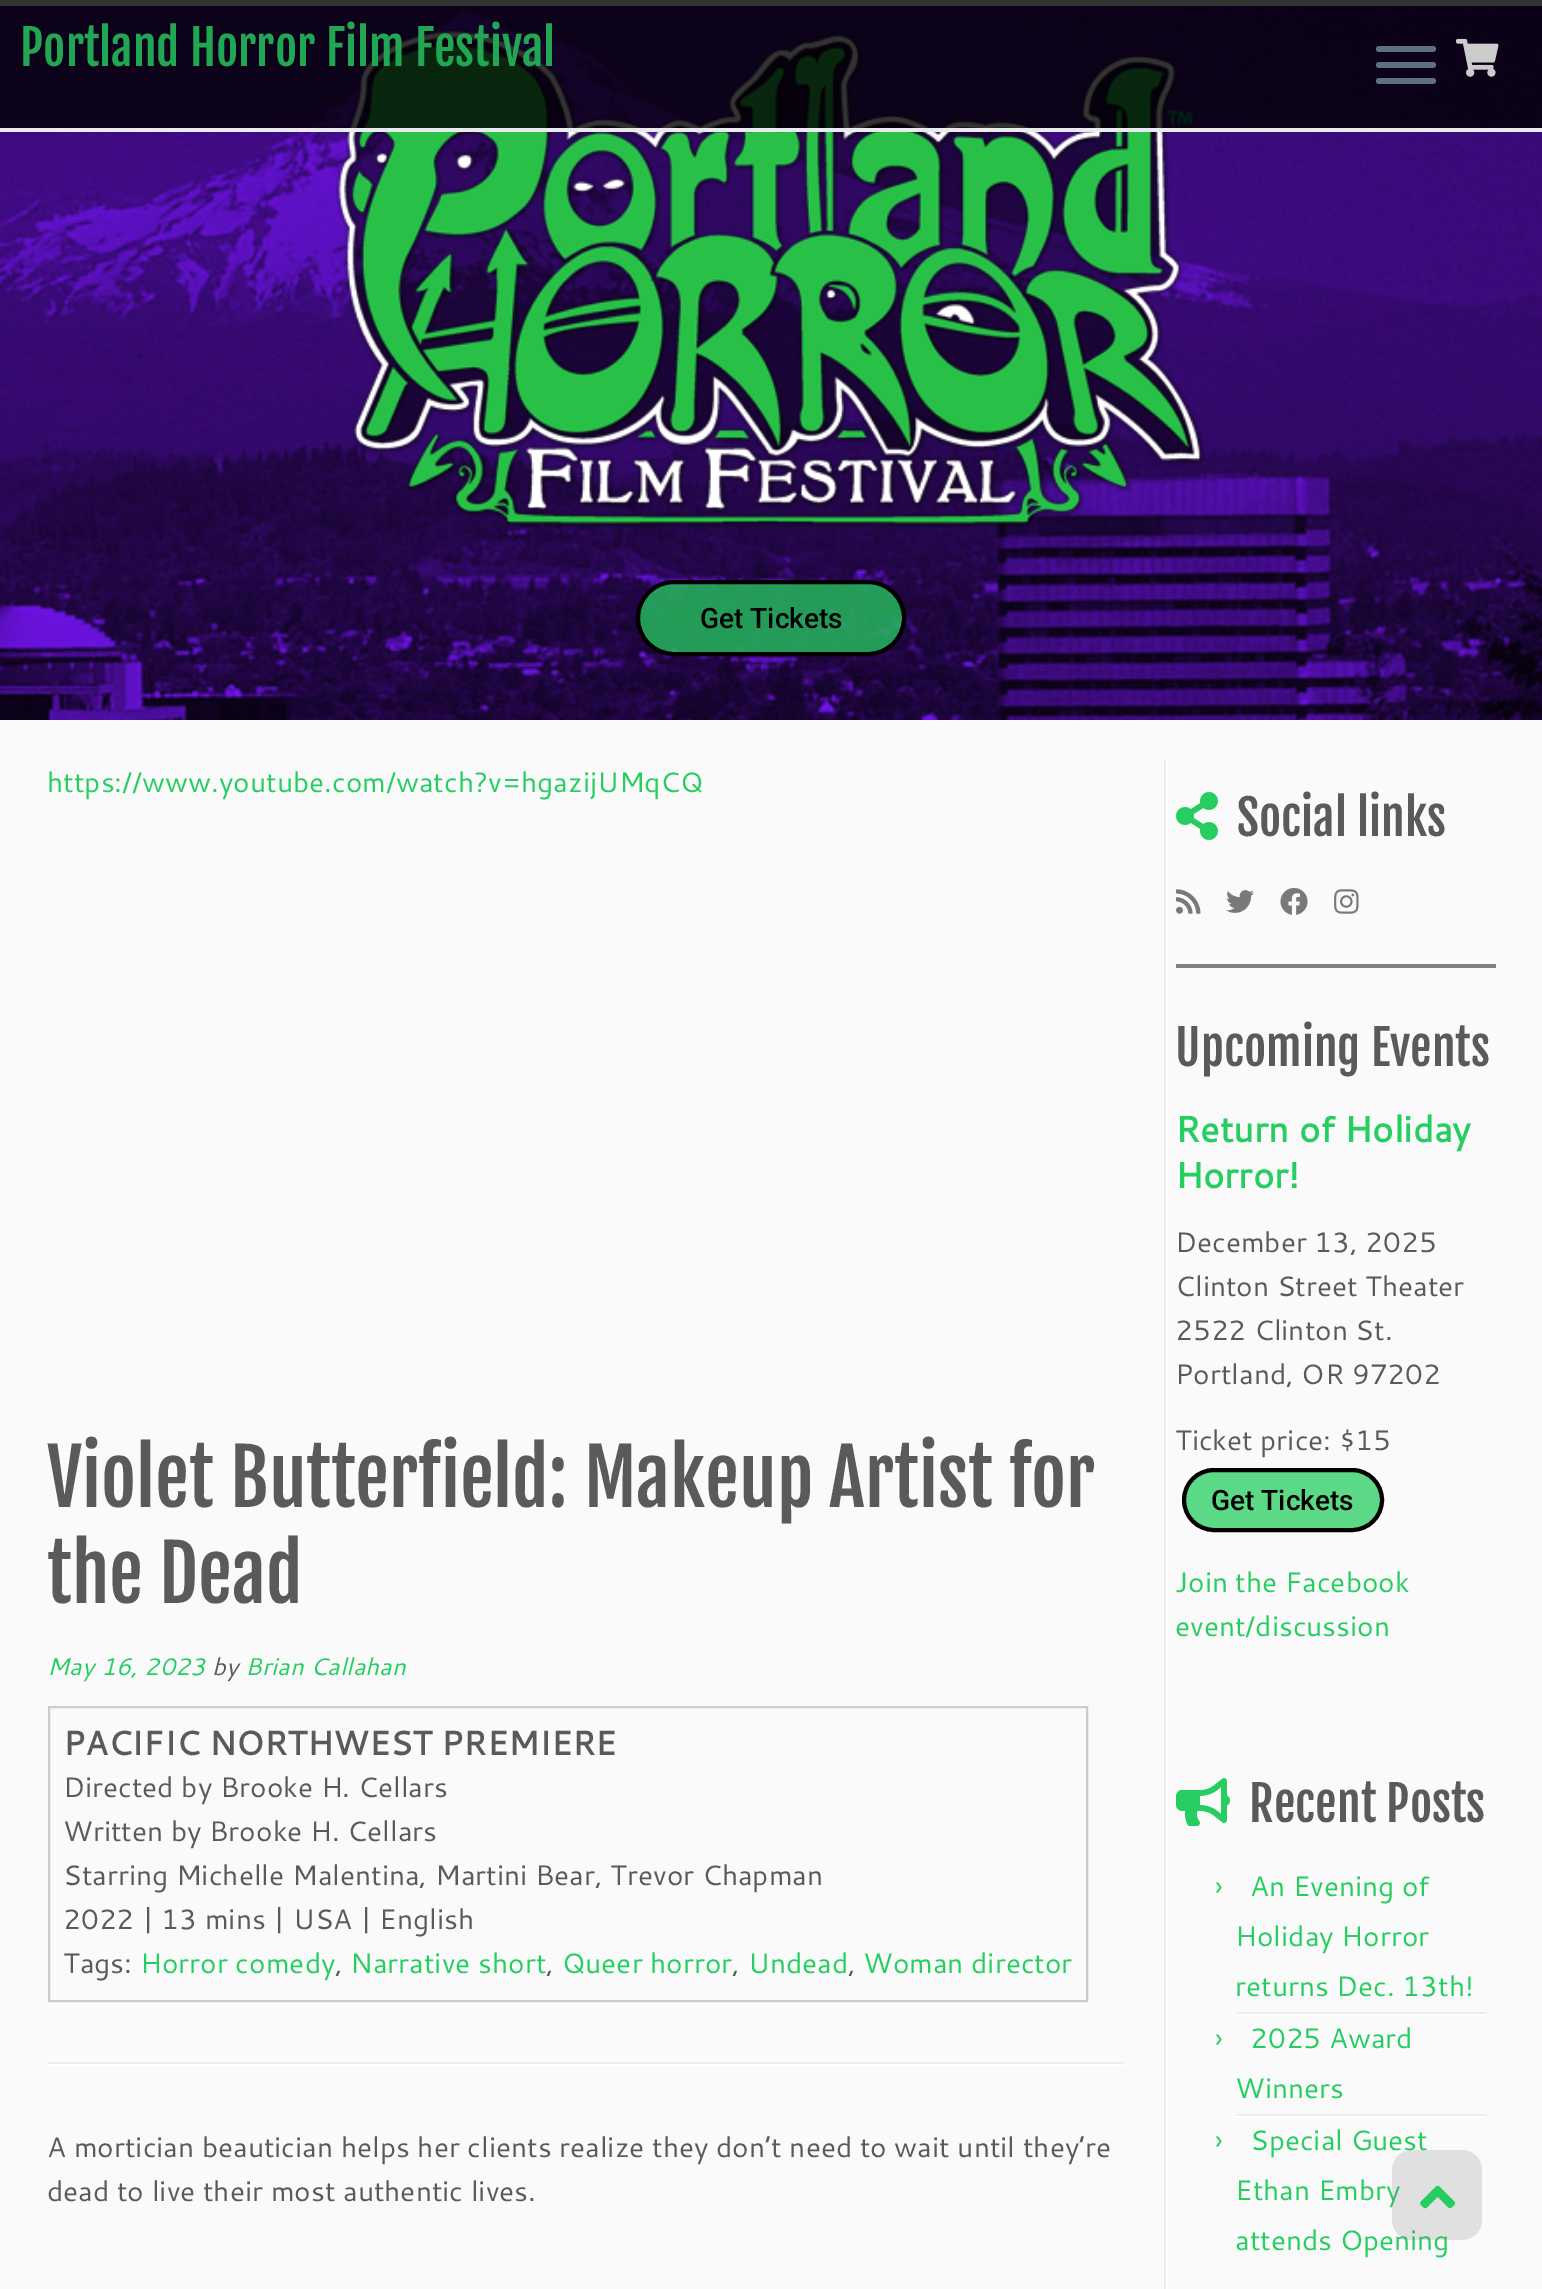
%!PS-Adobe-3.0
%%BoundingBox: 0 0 1542 2289
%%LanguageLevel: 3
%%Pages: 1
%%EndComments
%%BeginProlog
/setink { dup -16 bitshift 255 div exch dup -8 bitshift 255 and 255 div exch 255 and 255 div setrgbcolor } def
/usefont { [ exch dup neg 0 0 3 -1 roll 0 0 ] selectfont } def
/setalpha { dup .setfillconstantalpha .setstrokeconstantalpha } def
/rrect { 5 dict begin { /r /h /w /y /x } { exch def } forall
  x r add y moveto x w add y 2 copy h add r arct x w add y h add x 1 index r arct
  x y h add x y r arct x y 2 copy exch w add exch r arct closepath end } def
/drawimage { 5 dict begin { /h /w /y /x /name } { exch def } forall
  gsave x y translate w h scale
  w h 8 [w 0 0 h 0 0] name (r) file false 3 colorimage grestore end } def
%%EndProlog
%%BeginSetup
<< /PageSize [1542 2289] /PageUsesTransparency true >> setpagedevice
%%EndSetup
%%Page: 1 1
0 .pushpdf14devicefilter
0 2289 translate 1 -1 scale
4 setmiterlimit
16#FAFAFA setink
0 0 1542 2289 rectfill
(img2.raw) 0 6 1542 714 drawimage
(img3.raw) 335 27 870 501 drawimage
0.8 setalpha
16#000000 setink
0 0 1542 128 rectfill
1 setalpha
16#E9EAEE setink
0 128 1542 4 rectfill
/FjallaOne-Regular 48 usefont
16#21A653 setink
20 66 moveto (Portland Horror Film Festival) show
16#5F6F81 setink
1376 46 60 6 3 rrect fill
1376 62 60 6 3 rrect fill
1376 78 60 6 3 rrect fill
(img1.raw) 1456 38 43 39 drawimage
0.75 setalpha
16#26CE61 setink
638 582 266 72 36 rrect fill
1 setalpha
16#000000 setink
4 setlinewidth
638 582 266 72 36 rrect stroke
/Roboto-Medium 28 usefont
700 628 moveto (Get Tickets) show
/Cantarell-Regular 28 usefont
16#26CE61 setink
47 792 moveto (https://www.youtube.com/watch?v=hgazijUMqCQ) show
/FjallaOne-Regular 76 usefont
16#5A5A5A setink
47 1507 moveto (Violet Butterfield: Makeup Artist for) show
47 1603 moveto (the Dead) show
/Cantarell-Italic 24 usefont
16#26CE61 setink
47 1675 moveto (May 16, 2023) show
16#5A5A5A setink
212 1675 moveto (by) show
16#26CE61 setink
245 1675 moveto (Brian Callahan) show
16#CCCCCC setink
2 setlinewidth
49 1707 1038 294 rectstroke
/Cantarell-Bold 33.6 usefont
16#5A5A5A setink
63 1755 moveto (PACIFIC NORTHWEST PREMIERE) show
/Cantarell-Regular 28 usefont
[
    [(Directed by Brooke H. Cellars) 63 1797]
    [(Written by Brooke H. Cellars) 63 1841]
    [(Starring Michelle Malentina, Martini Bear, Trevor Chapman) 63 1885]
    [(2022 | 13 mins | USA | English) 63 1929]
    [(Tags:) 63 1973]
] { aload pop moveto show } forall
16#26CE61 setink
140 1973 moveto (Horror comedy) show
16#5A5A5A setink
335 1973 moveto (,) show
16#26CE61 setink
350 1973 moveto (Narrative short) show
16#5A5A5A setink
546 1973 moveto (,) show
16#26CE61 setink
562 1973 moveto (Queer horror) show
16#5A5A5A setink
732 1973 moveto (,) show
16#26CE61 setink
748 1973 moveto (Undead) show
16#5A5A5A setink
848 1973 moveto (,) show
16#26CE61 setink
863 1973 moveto (Woman director) show
16#EEEEEE setink
48 2062 1076 2 rectfill
16#FFFFFF setink
48 2064 1076 2 rectfill
16#5A5A5A setink
47 2157 moveto (A mortician beautician helps her clients realize they don’t need to wait until they’re) show
47 2201 moveto (dead to live their most authentic lives.) show
16#EEEEEE setink
1164 760 2 1529 rectfill
16#FFFFFF setink
1166 760 2 1529 rectfill
(img4.raw) 1176 792 42 48 drawimage
/FjallaOne-Regular 48 usefont
16#5A5A5A setink
1237 836 moveto (Social links) show
(img5.raw) 1176 889 25 25 drawimage
(img6.raw) 1226 890 28 23 drawimage
(img7.raw) 1280 888 28 27 drawimage
(img8.raw) 1334 889 25 25 drawimage
16#808080 setink
1176 964 320 4 rectfill
16#5A5A5A setink
1175 1066 moveto (Upcoming Events) show
/Cantarell-Bold 36 usefont
16#26CE61 setink
1175 1142 moveto (Return of Holiday) show
1175 1188 moveto (Horror!) show
/Cantarell-Regular 28 usefont
16#5A5A5A setink
[
    [(December 13, 2025) 1175 1252]
    [(Clinton Street Theater) 1175 1296]
    [(2522 Clinton St.) 1175 1340]
    [(Portland, OR 97202) 1175 1384]
    [(Ticket price: $15) 1175 1450]
] { aload pop moveto show } forall
16#5BD987 setink
1184 1470 198 60 30 rrect gsave fill grestore
16#000000 setink
4 setlinewidth
stroke
/Roboto-Medium 28 usefont
1211 1510 moveto (Get Tickets) show
/Cantarell-Regular 28 usefont
16#26CE61 setink
1175 1592 moveto (Join the Facebook) show
1175 1636 moveto (event/discussion) show
(img9.raw) 1176 1778 54 48 drawimage
/FjallaOne-Regular 48 usefont
16#5A5A5A setink
1249 1822 moveto (Recent Posts) show
16#EEEEEE setink
1236 2012 250 2 rectfill
/Cantarell-Regular 28 usefont
16#26CE61 setink
[
    [(›) 1215 1896]
    [(An Evening of) 1250 1896]
    [(Holiday Horror) 1235 1946]
    [(returns Dec. 13th!) 1235 1996]
] { aload pop moveto show } forall
16#FFFFFF setink
1236 2014 250 2 rectfill
16#EEEEEE setink
1236 2114 250 2 rectfill
16#26CE61 setink
[
    [(›) 1215 2048]
    [(2025 Award) 1250 2048]
    [(Winners) 1235 2098]
] { aload pop moveto show } forall
16#FFFFFF setink
1236 2116 250 2 rectfill
16#26CE61 setink
[
    [(›) 1215 2150]
    [(Special Guest) 1250 2150]
    [(Ethan Embry) 1235 2200]
    [(attends Opening) 1235 2250]
] { aload pop moveto show } forall
0.2 setalpha
16#777777 setink
1392 2150 90 90 20 rrect fill
1 setalpha
(img10.raw) 1420 2185 36 24 drawimage
.poppdf14devicefilter showpage
%%EOF
